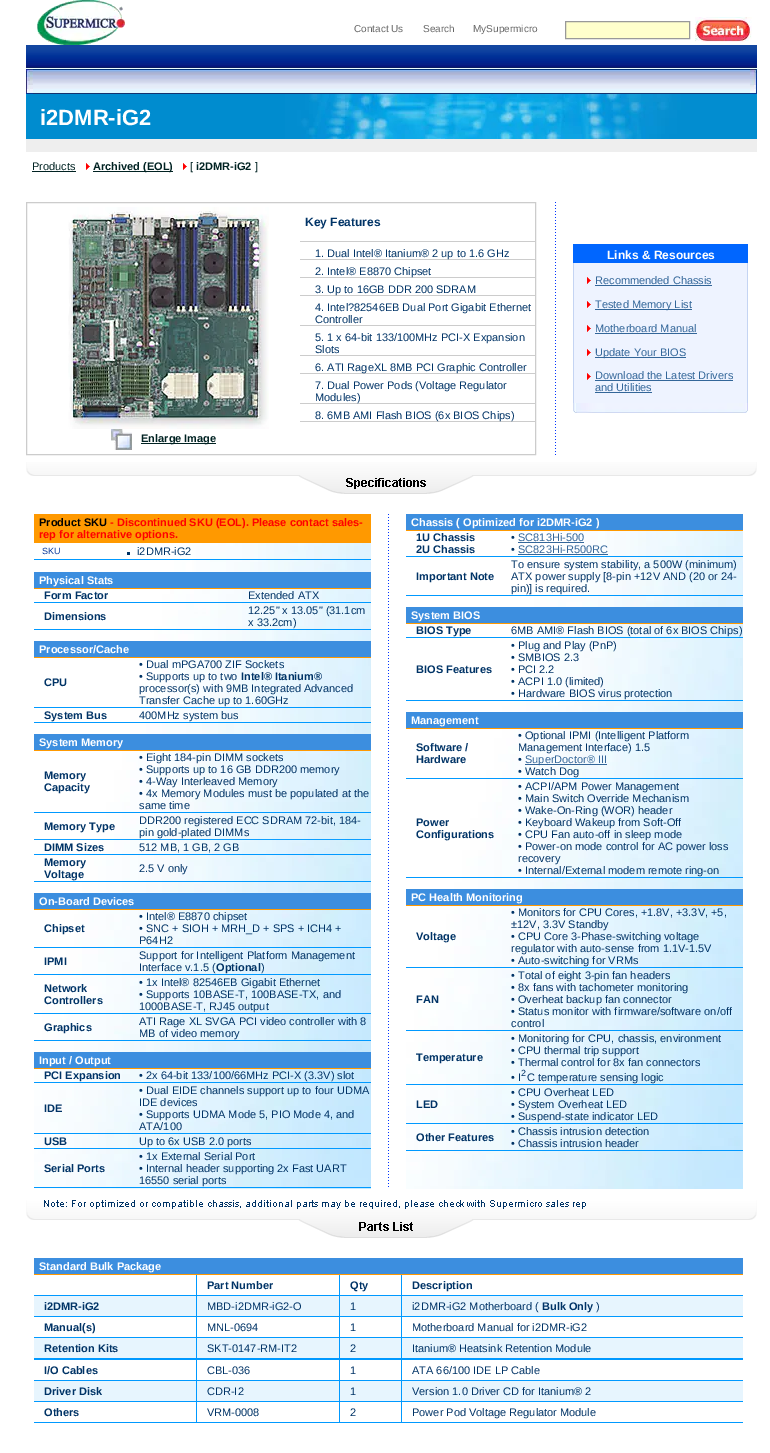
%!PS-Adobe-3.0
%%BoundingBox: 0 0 770 1453
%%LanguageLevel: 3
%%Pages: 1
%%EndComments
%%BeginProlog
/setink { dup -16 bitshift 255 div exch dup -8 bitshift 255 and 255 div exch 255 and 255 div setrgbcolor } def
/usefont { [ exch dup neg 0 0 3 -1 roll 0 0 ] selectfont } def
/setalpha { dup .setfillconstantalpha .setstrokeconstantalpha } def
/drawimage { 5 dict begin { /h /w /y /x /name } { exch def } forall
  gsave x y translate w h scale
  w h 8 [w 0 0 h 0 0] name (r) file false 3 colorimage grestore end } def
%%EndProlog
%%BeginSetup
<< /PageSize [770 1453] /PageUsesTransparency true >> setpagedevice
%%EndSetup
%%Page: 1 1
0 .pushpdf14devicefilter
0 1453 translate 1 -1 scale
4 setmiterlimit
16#FFFFFF setink
0 0 770 1453 rectfill
16#FFFFCC setink
565.5 21.5 moveto 689.5 21.5 lineto 689.5 38.5 lineto 565.5 38.5 lineto closepath gsave fill grestore
16#999999 setink
stroke
(img1.raw) 695 17 57 25 drawimage
(img2.raw) 37 0 88 45 drawimage
/LiberationSans-Regular 10 usefont
16#666666 setink
[
    [(Contact Us) 354 32]
    [(Search) 423 32]
    [(MySupermicro) 473 32]
] { aload pop moveto show } forall
(img3.raw) 26 69 7 25 drawimage
(img4.raw) 33 69 717 25 drawimage
(img5.raw) 750 69 7 25 drawimage
16#008CCF setink
26 94 259 45 rectfill
(img6.raw) 285 94 472 45 drawimage
16#EEEEEE setink
26 139 731 13 rectfill
/LiberationSans-Regular 11 usefont
16#002222 setink
32 170 moveto (Products) show
32 171 44 1 rectfill
(img7.raw) 86 163 4 7 drawimage
93 171 80 1 rectfill
/LiberationSans-Bold 11 usefont
93 170 moveto (Archived \(EOL\)) show
(img7.raw) 183 163 4 7 drawimage
/LiberationSans-Regular 11 usefont
190 170 moveto ([) show
/LiberationSans-Bold 11 usefont
196 170 moveto (i2DMR-iG2) show
/LiberationSans-Regular 11 usefont
255 170 moveto (]) show
16#CCCCCC setink
26.5 202.5 509 252 rectstroke
/LiberationSans-Bold 12 usefont
16#003366 setink
305 226 moveto (Key Features) show
16#CCCCCC setink
300 241 235 1 rectfill
300 259 235 1 rectfill
/LiberationSans-Regular 11 usefont
16#003366 setink
315 257 moveto (1. Dual Intel® Itanium® 2 up to 1.6 GHz) show
16#CCCCCC setink
300 277 235 1 rectfill
16#003366 setink
315 275 moveto (2. Intel® E8870 Chipset) show
16#CCCCCC setink
300 295 235 1 rectfill
16#003366 setink
[
    [(3. Up to 16GB DDR 200 SDRAM) 315 293]
    [(4. Intel?82546EB Dual Port Gigabit Ethernet) 315 311]
    [(Controller) 315 323]
] { aload pop moveto show } forall
16#CCCCCC setink
300 325 235 1 rectfill
16#003366 setink
315 341 moveto (5. 1 x 64-bit 133/100MHz PCI-X Expansion) show
315 353 moveto (Slots) show
16#CCCCCC setink
300 355 235 1 rectfill
300 373 235 1 rectfill
16#003366 setink
315 371 moveto (6. ATI RageXL 8MB PCI Graphic Controller) show
315 389 moveto (7. Dual Power Pods \(Voltage Regulator) show
16#CCCCCC setink
300 403 235 1 rectfill
16#003366 setink
315 401 moveto (Modules\)) show
16#CCCCCC setink
300 421 235 1 rectfill
16#003366 setink
315 419 moveto (8. 6MB AMI Flash BIOS \(6x BIOS Chips\)) show
(img8.raw) 68 207 201 222 drawimage
(img9.raw) 111 429 21 21 drawimage
16#002222 setink
141 443 75 1 rectfill
/LiberationSans-Bold 11 usefont
141 442 moveto (Enlarge Image) show
(img10.raw) 555 202 1 253 drawimage
16#0066FF setink
573 244 10 19 rectfill
583 244 165 19 rectfill
/LiberationSans-Bold 12 usefont
16#FFFFFF setink
607 259 moveto (Links & Resources) show
16#EEF3FF setink
574 263 173 140 rectfill
16#C4D4F3 setink
573 263 1 140 rectfill
(img11.raw) 587 277 4 7 drawimage
/LiberationSans-Regular 11 usefont
16#336699 setink
595 284 moveto (Recommended Chassis) show
595 285 117 1 rectfill
(img11.raw) 587 301 4 7 drawimage
595 309 97 1 rectfill
595 308 moveto (Tested Memory List) show
(img11.raw) 587 325 4 7 drawimage
595 332 moveto (Motherboard Manual) show
595 333 102 1 rectfill
(img11.raw) 587 349 4 7 drawimage
595 357 91 1 rectfill
595 356 moveto (Update Your BIOS) show
(img11.raw) 587 373 4 7 drawimage
595 379 moveto (Download the Latest Drivers) show
595 380 138 1 rectfill
595 391 moveto (and Utilities) show
595 392 57 1 rectfill
16#C4D4F3 setink
747 263 1 140 rectfill
(img12.raw) 573 403 175 10 drawimage
(img13.raw) 26 462 731 32 drawimage
(img14.raw) 34 543 337 646 drawimage
16#FF9900 setink
34 514 337 29 rectfill
/LiberationSans-Bold 11 usefont
16#000000 setink
39 526 moveto (Product SKU) show
16#FF0000 setink
110 526 moveto (- Discontinued SKU \(EOL\). Please contact sales-) show
39 538 moveto (rep for alternative options.) show
16#0099FF setink
34 559 337 1 rectfill
/LiberationSans-Regular 9 usefont
16#003399 setink
42 554 moveto (SKU) show
16#003366 setink
127 552 3 3 rectfill
/LiberationSans-Regular 11 usefont
137 555 moveto (i2DMR-iG2) show
16#3C8EDF setink
34 572 337 16 rectfill
/LiberationSans-Bold 11 usefont
16#FFFFFF setink
39 584 moveto (Physical Stats) show
16#FF9900 setink
34 588 337 1 rectfill
16#003366 setink
44 599 moveto (Form Factor) show
/LiberationSans-Regular 11 usefont
248 599 moveto (Extended ATX) show
16#0099FF setink
34 602 337 1 rectfill
/LiberationSans-Bold 11 usefont
16#003366 setink
44 620 moveto (Dimensions) show
/LiberationSans-Regular 11 usefont
248 614 moveto (12.25" x 13.05" \(31.1cm) show
248 626 moveto (x 33.2cm\)) show
16#0099FF setink
34 629 337 1 rectfill
16#3C8EDF setink
34 641 337 16 rectfill
/LiberationSans-Bold 11 usefont
16#FFFFFF setink
39 653 moveto (Processor/Cache) show
16#FF9900 setink
34 657 337 1 rectfill
16#003366 setink
44 686 moveto (CPU) show
/LiberationSans-Regular 11 usefont
139 668 moveto (• Dual mPGA700 ZIF Sockets) show
139 680 moveto (• Supports up to two) show
/LiberationSans-Bold 11 usefont
241 680 moveto (Intel® Itanium®) show
/LiberationSans-Regular 11 usefont
139 692 moveto (processor\(s\) with 9MB Integrated Advanced) show
139 704 moveto (Transfer Cache up to 1.60GHz) show
16#0099FF setink
34 707 337 1 rectfill
/LiberationSans-Bold 11 usefont
16#003366 setink
44 719 moveto (System Bus) show
/LiberationSans-Regular 11 usefont
139 719 moveto (400MHz system bus) show
16#0099FF setink
34 722 337 1 rectfill
16#3C8EDF setink
34 734 337 16 rectfill
/LiberationSans-Bold 11 usefont
16#FFFFFF setink
39 746 moveto (System Memory) show
16#FF9900 setink
34 750 337 1 rectfill
16#003366 setink
44 779 moveto (Memory) show
44 791 moveto (Capacity) show
/LiberationSans-Regular 11 usefont
[
    [(• Eight 184-pin DIMM sockets) 139 761]
    [(• Supports up to 16 GB DDR200 memory) 139 773]
    [(• 4-Way Interleaved Memory) 139 785]
    [(• 4x Memory Modules must be populated at the) 139 797]
    [(same time) 139 809]
] { aload pop moveto show } forall
16#0099FF setink
34 812 337 1 rectfill
/LiberationSans-Bold 11 usefont
16#003366 setink
44 830 moveto (Memory Type) show
/LiberationSans-Regular 11 usefont
139 824 moveto (DDR200 registered ECC SDRAM 72-bit, 184-) show
139 836 moveto (pin gold-plated DIMMs) show
0.94 setalpha
16#0099FF setink
34 839 337 1 rectfill
/LiberationSans-Bold 11 usefont
1 setalpha
16#003366 setink
44 851 moveto (DIMM Sizes) show
/LiberationSans-Regular 11 usefont
139 851 moveto (512 MB, 1 GB, 2 GB) show
16#0099FF setink
34 854 337 1 rectfill
/LiberationSans-Bold 11 usefont
16#003366 setink
44 866 moveto (Memory) show
44 878 moveto (Voltage) show
/LiberationSans-Regular 11 usefont
139 872 moveto (2.5 V only) show
16#0099FF setink
34 881 337 1 rectfill
16#3C8EDF setink
34 893 337 16 rectfill
/LiberationSans-Bold 11 usefont
16#FFFFFF setink
39 905 moveto (On-Board Devices) show
16#FF9900 setink
34 909 337 1 rectfill
16#003366 setink
44 932 moveto (Chipset) show
/LiberationSans-Regular 11 usefont
[
    [(• Intel® E8870 chipset) 139 920]
    [(• SNC + SIOH + MRH_D + SPS + ICH4 +) 139 932]
    [(P64H2) 139 944]
] { aload pop moveto show } forall
16#0099FF setink
34 947 337 1 rectfill
/LiberationSans-Bold 11 usefont
16#003366 setink
44 965 moveto (IPMI) show
/LiberationSans-Regular 11 usefont
139 959 moveto (Support for Intelligent Platform Management) show
139 971 moveto (Interface v.1.5 \() show
/LiberationSans-Bold 11 usefont
216 971 moveto (Optional) show
/LiberationSans-Regular 11 usefont
261 971 moveto (\)) show
16#0099FF setink
34 974 337 1 rectfill
/LiberationSans-Bold 11 usefont
16#003366 setink
44 992 moveto (Network) show
44 1004 moveto (Controllers) show
/LiberationSans-Regular 11 usefont
[
    [(• 1x Intel® 82546EB Gigabit Ethernet) 139 986]
    [(• Supports 10BASE-T, 100BASE-TX, and) 139 998]
    [(1000BASE-T, RJ45 output) 139 1010]
] { aload pop moveto show } forall
16#0099FF setink
34 1013 337 1 rectfill
/LiberationSans-Bold 11 usefont
16#003366 setink
44 1031 moveto (Graphics) show
/LiberationSans-Regular 11 usefont
139 1025 moveto (ATI Rage XL SVGA PCI video controller with 8) show
139 1037 moveto (MB of video memory) show
16#0099FF setink
34 1040 337 1 rectfill
16#3C8EDF setink
34 1052 337 16 rectfill
/LiberationSans-Bold 11 usefont
16#FFFFFF setink
39 1064 moveto (Input / Output) show
16#FF9900 setink
34 1068 337 1 rectfill
16#003366 setink
44 1079 moveto (PCI Expansion) show
/LiberationSans-Regular 11 usefont
139 1079 moveto (• 2x 64-bit 133/100/66MHz PCI-X \(3.3V\) slot) show
16#0099FF setink
34 1082 337 1 rectfill
/LiberationSans-Bold 11 usefont
16#003366 setink
44 1112 moveto (IDE) show
/LiberationSans-Regular 11 usefont
[
    [(• Dual EIDE channels support up to four UDMA) 139 1094]
    [(IDE devices) 139 1106]
    [(• Supports UDMA Mode 5, PIO Mode 4, and) 139 1118]
    [(ATA/100) 139 1130]
] { aload pop moveto show } forall
16#0099FF setink
34 1133 337 1 rectfill
/LiberationSans-Bold 11 usefont
16#003366 setink
44 1145 moveto (USB) show
/LiberationSans-Regular 11 usefont
139 1145 moveto (Up to 6x USB 2.0 ports) show
16#0099FF setink
34 1148 337 1 rectfill
/LiberationSans-Bold 11 usefont
16#003366 setink
44 1172 moveto (Serial Ports) show
/LiberationSans-Regular 11 usefont
[
    [(• 1x External Serial Port) 139 1160]
    [(• Internal header supporting 2x Fast UART) 139 1172]
    [(16550 serial ports) 139 1184]
] { aload pop moveto show } forall
16#0099FF setink
34 1187 337 1 rectfill
(img15.raw) 388 514 1 673 drawimage
(img16.raw) 406 531 337 658 drawimage
16#3C8EDF setink
406 514 337 16 rectfill
/LiberationSans-Bold 11 usefont
16#FFFFFF setink
411 526 moveto (Chassis \( Optimized for i2DMR-iG2 \)) show
16#FF9900 setink
406 530 337 1 rectfill
16#003366 setink
416 541 moveto (1U Chassis) show
/LiberationSans-Regular 11 usefont
511 541 moveto (•) show
16#336699 setink
518 541 moveto (SC813Hi-500) show
518 542 66 1 rectfill
/LiberationSans-Bold 11 usefont
16#003366 setink
416 553 moveto (2U Chassis) show
/LiberationSans-Regular 11 usefont
511 553 moveto (•) show
16#336699 setink
518 553 moveto (SC823Hi-R500RC) show
518 554 90 1 rectfill
16#0099FF setink
406 556 337 1 rectfill
/LiberationSans-Bold 11 usefont
16#003366 setink
416 580 moveto (Important Note) show
/LiberationSans-Regular 11 usefont
[
    [(To ensure system stability, a 500W \(minimum\)) 511 568]
    [(ATX power supply [8-pin +12V AND \(20 or 24-) 511 580]
    [(pin\)] is required.) 511 592]
] { aload pop moveto show } forall
16#0099FF setink
406 595 337 1 rectfill
16#3C8EDF setink
406 607 337 16 rectfill
/LiberationSans-Bold 11 usefont
16#FFFFFF setink
411 619 moveto (System BIOS) show
16#FF9900 setink
406 623 337 1 rectfill
16#003366 setink
416 634 moveto (BIOS Type) show
/LiberationSans-Regular 11 usefont
511 634 moveto (6MB AMI® Flash BIOS \(total of 6x BIOS Chips\)) show
16#0099FF setink
406 637 337 1 rectfill
/LiberationSans-Bold 11 usefont
16#003366 setink
416 673 moveto (BIOS Features) show
/LiberationSans-Regular 11 usefont
[
    [(• Plug and Play \(PnP\)) 511 649]
    [(• SMBIOS 2.3) 511 661]
    [(• PCI 2.2) 511 673]
    [(• ACPI 1.0 \(limited\)) 511 685]
    [(• Hardware BIOS virus protection) 511 697]
] { aload pop moveto show } forall
16#0099FF setink
406 700 337 1 rectfill
16#3C8EDF setink
406 712 337 16 rectfill
/LiberationSans-Bold 11 usefont
16#FFFFFF setink
411 724 moveto (Management) show
16#FF9900 setink
406 728 337 1 rectfill
16#003366 setink
416 751 moveto (Software /) show
416 763 moveto (Hardware) show
/LiberationSans-Regular 11 usefont
[
    [(• Optional IPMI \(Intelligent Platform) 518 739]
    [(Management Interface\) 1.5) 518 751]
    [(•) 518 763]
] { aload pop moveto show } forall
16#336699 setink
525 764 82 1 rectfill
525 763 moveto (SuperDoctor® III) show
16#003366 setink
518 775 moveto (• Watch Dog) show
16#0099FF setink
406 778 337 1 rectfill
/LiberationSans-Bold 11 usefont
16#003366 setink
416 826 moveto (Power) show
416 838 moveto (Configurations) show
/LiberationSans-Regular 11 usefont
[
    [(• ACPI/APM Power Management) 518 790]
    [(• Main Switch Override Mechanism) 518 802]
    [(• Wake-On-Ring \(WOR\) header) 518 814]
    [(• Keyboard Wakeup from Soft-Off) 518 826]
    [(• CPU Fan auto-off in sleep mode) 518 838]
    [(• Power-on mode control for AC power loss) 518 850]
    [(recovery) 518 862]
    [(• Internal/External modem remote ring-on) 518 874]
] { aload pop moveto show } forall
16#0099FF setink
406 877 337 1 rectfill
16#3C8EDF setink
406 889 337 16 rectfill
/LiberationSans-Bold 11 usefont
16#FFFFFF setink
411 901 moveto (PC Health Monitoring) show
16#FF9900 setink
406 905 337 1 rectfill
16#003366 setink
416 940 moveto (Voltage) show
/LiberationSans-Regular 11 usefont
[
    [(• Monitors for CPU Cores, +1.8V, +3.3V, +5,) 511 916]
    [(±12V, 3.3V Standby) 511 928]
    [(• CPU Core 3-Phase-switching voltage) 511 940]
    [(regulator with auto-sense from 1.1V-1.5V) 511 952]
    [(• Auto-switching for VRMs) 511 964]
] { aload pop moveto show } forall
16#0099FF setink
406 967 337 1 rectfill
/LiberationSans-Bold 11 usefont
16#003366 setink
416 1003 moveto (FAN) show
/LiberationSans-Regular 11 usefont
[
    [(• Total of eight 3-pin fan headers) 511 979]
    [(• 8x fans with tachometer monitoring) 511 991]
    [(• Overheat backup fan connector) 511 1003]
    [(• Status monitor with firmware/software on/off) 511 1015]
    [(control) 511 1027]
] { aload pop moveto show } forall
16#0099FF setink
406 1030 337 1 rectfill
/LiberationSans-Bold 11 usefont
16#003366 setink
416 1061 moveto (Temperature) show
/LiberationSans-Regular 11 usefont
[
    [(• Monitoring for CPU, chassis, environment) 511 1042]
    [(• CPU thermal trip support) 511 1054]
    [(• Thermal control for 8x fan connectors) 511 1066]
    [(• I) 511 1081]
] { aload pop moveto show } forall
/LiberationSans-Regular 9 usefont
521 1076 moveto (2) show
/LiberationSans-Regular 11 usefont
527 1081 moveto (C temperature sensing logic) show
16#0099FF setink
406 1084 337 1 rectfill
/LiberationSans-Bold 11 usefont
16#003366 setink
416 1108 moveto (LED) show
/LiberationSans-Regular 11 usefont
[
    [(• CPU Overheat LED) 511 1096]
    [(• System Overheat LED) 511 1108]
    [(• Suspend-state indicator LED) 511 1120]
] { aload pop moveto show } forall
16#0099FF setink
406 1123 337 1 rectfill
/LiberationSans-Bold 11 usefont
16#003366 setink
416 1141 moveto (Other Features) show
/LiberationSans-Regular 11 usefont
511 1135 moveto (• Chassis intrusion detection) show
511 1147 moveto (• Chassis intrusion header) show
16#0099FF setink
406 1150 337 1 rectfill
(img17.raw) 26 1200 731 38 drawimage
16#3C8EDF setink
34 1258 709 16 rectfill
/LiberationSans-Bold 11 usefont
16#FFFFFF setink
39 1270 moveto (Standard Bulk Package) show
16#FF9900 setink
34 1274 709 1 rectfill
16#0099FF setink
196 1275 1 20 rectfill
16#003366 setink
207 1289 moveto (Part Number) show
16#0099FF setink
339 1275 1 20 rectfill
16#003366 setink
350 1289 moveto (Qty) show
16#0099FF setink
401 1275 1 20 rectfill
16#003366 setink
412 1289 moveto (Description) show
16#0099FF setink
34 1295 709 1 rectfill
16#E7F5FE setink
34 1296 709 20 rectfill
16#003366 setink
44 1310 moveto (i2DMR-iG2) show
16#0099FF setink
196 1296 1 20 rectfill
/LiberationSans-Regular 11 usefont
16#003366 setink
207 1310 moveto (MBD-i2DMR-iG2-O) show
16#0099FF setink
339 1296 1 20 rectfill
16#003366 setink
350 1310 moveto (1) show
16#0099FF setink
401 1296 1 20 rectfill
16#003366 setink
412 1310 moveto (i2DMR-iG2 Motherboard \() show
/LiberationSans-Bold 11 usefont
542 1310 moveto (Bulk Only) show
/LiberationSans-Regular 11 usefont
596 1310 moveto (\)) show
16#0099FF setink
34 1316 709 1 rectfill
/LiberationSans-Bold 11 usefont
16#003366 setink
44 1331 moveto (Manual\(s\)) show
16#0099FF setink
196 1317 1 20 rectfill
/LiberationSans-Regular 11 usefont
16#003366 setink
207 1331 moveto (MNL-0694) show
16#0099FF setink
339 1317 1 20 rectfill
16#003366 setink
350 1331 moveto (1) show
16#0099FF setink
401 1317 1 20 rectfill
16#003366 setink
412 1331 moveto (Motherboard Manual for i2DMR-iG2) show
16#0099FF setink
34 1337 709 1 rectfill
16#E7F5FE setink
34 1338 709 20 rectfill
/LiberationSans-Bold 11 usefont
16#003366 setink
44 1352 moveto (Retention Kits) show
16#0099FF setink
196 1338 1 20 rectfill
/LiberationSans-Regular 11 usefont
16#003366 setink
207 1352 moveto (SKT-0147-RM-IT2) show
16#0099FF setink
339 1338 1 20 rectfill
16#003366 setink
350 1352 moveto (2) show
16#0099FF setink
401 1338 1 20 rectfill
16#003366 setink
412 1352 moveto (Itanium® Heatsink Retention Module) show
16#0099FF setink
34 1358 709 2 rectfill
/LiberationSans-Bold 11 usefont
16#003366 setink
44 1374 moveto (I/O Cables) show
16#0099FF setink
196 1360 1 20 rectfill
/LiberationSans-Regular 11 usefont
16#003366 setink
207 1374 moveto (CBL-036) show
16#0099FF setink
339 1360 1 20 rectfill
16#003366 setink
350 1374 moveto (1) show
16#0099FF setink
401 1360 1 20 rectfill
16#003366 setink
412 1374 moveto (ATA 66/100 IDE LP Cable) show
16#0099FF setink
34 1380 709 1 rectfill
16#E7F5FE setink
34 1381 709 20 rectfill
/LiberationSans-Bold 11 usefont
16#003366 setink
44 1395 moveto (Driver Disk) show
16#0099FF setink
196 1381 1 20 rectfill
/LiberationSans-Regular 11 usefont
16#003366 setink
207 1395 moveto (CDR-I2) show
16#0099FF setink
339 1381 1 20 rectfill
16#003366 setink
350 1395 moveto (1) show
16#0099FF setink
401 1381 1 20 rectfill
16#003366 setink
412 1395 moveto (Version 1.0 Driver CD for Itanium® 2) show
16#0099FF setink
34 1401 709 1 rectfill
/LiberationSans-Bold 11 usefont
16#003366 setink
44 1416 moveto (Others) show
16#0099FF setink
196 1402 1 20 rectfill
/LiberationSans-Regular 11 usefont
16#003366 setink
207 1416 moveto (VRM-0008) show
16#0099FF setink
339 1402 1 20 rectfill
16#003366 setink
350 1416 moveto (2) show
16#0099FF setink
401 1402 1 20 rectfill
16#003366 setink
412 1416 moveto (Power Pod Voltage Regulator Module) show
16#0099FF setink
34 1422 709 1 rectfill
(img18.raw) 26 45 731 24 drawimage
/LiberationSans-Bold 22 usefont
16#FFFFFF setink
40 125 moveto (i2DMR-iG2) show
.poppdf14devicefilter showpage
%%EOF
